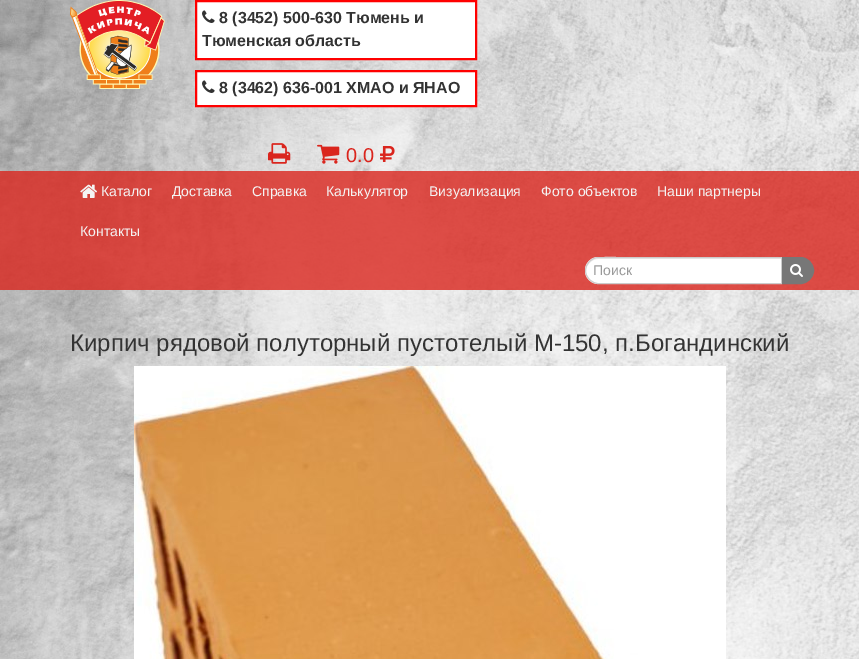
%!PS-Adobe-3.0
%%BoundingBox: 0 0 859 659
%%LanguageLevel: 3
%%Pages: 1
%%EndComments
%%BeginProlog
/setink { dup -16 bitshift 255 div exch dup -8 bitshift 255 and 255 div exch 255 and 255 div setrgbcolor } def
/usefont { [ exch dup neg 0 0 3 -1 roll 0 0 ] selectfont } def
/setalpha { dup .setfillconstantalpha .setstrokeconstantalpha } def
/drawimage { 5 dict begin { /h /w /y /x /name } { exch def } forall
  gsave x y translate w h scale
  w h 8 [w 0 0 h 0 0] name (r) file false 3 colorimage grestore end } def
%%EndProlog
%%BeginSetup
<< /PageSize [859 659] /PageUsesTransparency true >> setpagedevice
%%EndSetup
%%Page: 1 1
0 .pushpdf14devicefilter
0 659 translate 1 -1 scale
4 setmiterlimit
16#FFFFFF setink
0 0 859 659 rectfill
(img1.raw) 0 0 859 659 drawimage
(img2.raw) 70 0 95 89 drawimage
196 1 moveto 476 1 lineto 476 59 lineto 196 59 lineto closepath gsave fill grestore
16#FF0000 setink
2 setlinewidth
stroke
(img3.raw) 202 10 13 13 drawimage
/LiberationSans-Bold 16 usefont
16#333333 setink
219 23 moveto (8 \(3452\) 500-630 Тюмень и) show
202 46 moveto (Тюменская область) show
16#FFFFFF setink
196 71 moveto 476 71 lineto 476 106 lineto 196 106 lineto closepath gsave fill grestore
16#FF0000 setink
stroke
(img3.raw) 202 80 13 13 drawimage
16#333333 setink
219 93 moveto (8 \(3462\) 636-001 ХМАО и ЯНАО) show
(img4.raw) 268 143 23 21 drawimage
(img5.raw) 317 144 23 20 drawimage
/LiberationSans-Regular 20 usefont
16#DA251D setink
346 162 moveto (0.0) show
(img6.raw) 380 146 15 16 drawimage
0.8 setalpha
0 171 859 119 rectfill
1 setalpha
(img7.raw) 80 184 17 14 drawimage
/LiberationSans-Regular 14 usefont
16#F4F4F4 setink
[
    [(Каталог) 101 196]
    [(Доставка) 172 196]
    [(Справка) 252 196]
    [(Калькулятор) 326 196]
    [(Визуализация) 429 196]
    [(Фото объектов) 541 196]
    [(Наши партнеры) 657 196]
    [(Контакты) 80 236]
] { aload pop moveto show } forall
16#FFFFFF setink
598.5 257 moveto 782 257 lineto 782 284 lineto 598.5 284 lineto 591 284 585 278 585 270.5 curveto 585 263 591 257 598.5 257 curveto closepath fill
16#ECECEC setink
598 259 moveto 781 259 lineto 781 258 lineto 629 258 lineto 622 258 585 251 586 271 curveto 586 265 592 259 598 259 curveto closepath fill
16#CCCCCC setink
1 setlinewidth
598.5 257.5 moveto 781.5 257.5 lineto 781.5 283.5 lineto 598.5 283.5 lineto 591.5 283.5 585.5 277.5 585.5 270.5 curveto 585.5 263.5 591.5 257.5 598.5 257.5 curveto closepath stroke
16#999999 setink
593 275 moveto (Поиск) show
16#777777 setink
782.5 257.5 moveto 800.5 257.5 lineto 807.5 257.5 813.5 263.5 813.5 270.5 curveto 813.5 277.5 807.5 283.5 800.5 283.5 curveto 782.5 283.5 lineto closepath gsave fill grestore
stroke
(img8.raw) 790 264 13 13 drawimage
/LiberationSans-Regular 24 usefont
16#333333 setink
70 351 moveto (Кирпич рядовой полуторный пустотелый М-150, п.Богандинский) show
(img9.raw) 134 366 592 293 drawimage
.poppdf14devicefilter showpage
%%EOF
